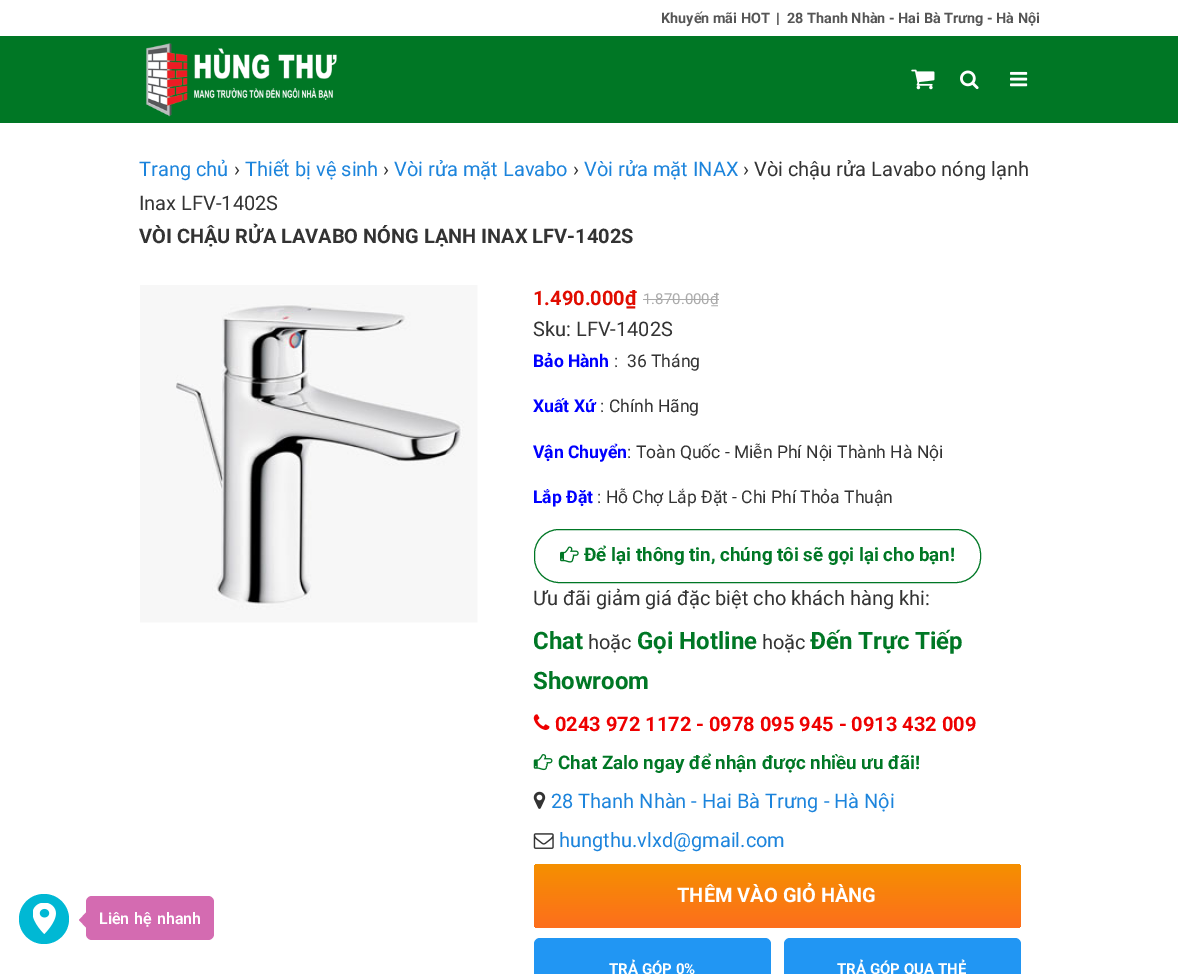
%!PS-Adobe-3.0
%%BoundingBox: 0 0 1178 974
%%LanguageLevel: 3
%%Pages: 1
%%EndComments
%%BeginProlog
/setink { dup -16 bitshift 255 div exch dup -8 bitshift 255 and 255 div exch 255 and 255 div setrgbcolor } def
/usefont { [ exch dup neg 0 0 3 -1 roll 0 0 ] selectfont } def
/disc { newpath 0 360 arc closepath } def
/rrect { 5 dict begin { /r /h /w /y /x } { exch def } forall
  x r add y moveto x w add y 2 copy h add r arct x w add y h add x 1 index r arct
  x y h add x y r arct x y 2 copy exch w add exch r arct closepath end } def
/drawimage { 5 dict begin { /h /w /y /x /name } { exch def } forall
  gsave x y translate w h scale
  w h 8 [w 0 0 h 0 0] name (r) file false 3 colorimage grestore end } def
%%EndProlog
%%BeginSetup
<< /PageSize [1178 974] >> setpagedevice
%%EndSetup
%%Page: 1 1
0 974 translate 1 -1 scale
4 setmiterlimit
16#FFFFFF setink
0 0 1178 974 rectfill
/Roboto-Bold 14.4 usefont
16#555555 setink
661 23 moveto (Khuyến mãi HOT) show
16#333333 setink
776 23 moveto (|) show
16#555555 setink
787 23 moveto (28 Thanh Nhàn - Hai Bà Trưng - Hà Nội) show
16#007725 setink
0 36 1178 87 rectfill
(img1.raw) 146 43 191 74 drawimage
(img2.raw) 911 69 24 21 drawimage
(img3.raw) 960 70 19 20 drawimage
(img4.raw) 1010 71 18 16 drawimage
/Roboto-Regular 20 usefont
16#1C84DC setink
139 176 moveto (Trang chủ) show
16#333333 setink
234 176 moveto (›) show
16#1C84DC setink
245 176 moveto (Thiết bị vệ sinh) show
16#333333 setink
383 176 moveto (›) show
16#1C84DC setink
394 176 moveto (Vòi rửa mặt Lavabo) show
16#333333 setink
573 176 moveto (›) show
16#1C84DC setink
584 176 moveto (Vòi rửa mặt INAX) show
16#333333 setink
743 176 moveto (› Vòi chậu rửa Lavabo nóng lạnh) show
139 210 moveto (Inax LFV-1402S) show
/Roboto-Bold 20 usefont
139 243 moveto (VÒI CHẬU RỬA LAVABO NÓNG LẠNH INAX LFV-1402S) show
(img5.raw) 140 285 338 338 drawimage
16#E10C00 setink
533 305 moveto (1.490.000₫) show
/Roboto-Regular 15 usefont
16#AAAAAA setink
643 304 moveto (1.870.000₫) show
643 299 76 1 rectfill
/Roboto-Regular 20 usefont
16#333333 setink
533 336 moveto (Sku: LFV-1402S) show
/Roboto-Bold 17.5 usefont
16#0000FF setink
533 367 moveto (Bảo Hành) show
/Roboto-Regular 17.5 usefont
16#333333 setink
614 367 moveto (:  36 Tháng) show
/Roboto-Bold 17.5 usefont
16#0000FF setink
533 412 moveto (Xuất Xứ) show
/Roboto-Regular 17.5 usefont
16#333333 setink
600 412 moveto (: Chính Hãng) show
/Roboto-Bold 17.5 usefont
16#0000FF setink
533 458 moveto (Vận Chuyển) show
/Roboto-Regular 17.5 usefont
16#333333 setink
627 458 moveto (: Toàn Quốc - Miễn Phí Nội Thành Hà Nội) show
/Roboto-Bold 17.5 usefont
16#0000FF setink
533 503 moveto (Lắp Đặt) show
/Roboto-Regular 17.5 usefont
16#333333 setink
597 503 moveto (: Hỗ Chợ Lắp Đặt - Chi Phí Thỏa Thuận) show
16#007725 setink
534.5 529.5 446 53 24.5 rrect stroke
(img6.raw) 560 546 19 17 drawimage
/Roboto-Bold 18.75 usefont
584 561 moveto (Để lại thông tin, chúng tôi sẽ gọi lại cho bạn!) show
/Roboto-Regular 20 usefont
16#333333 setink
533 605 moveto (Ưu đãi giảm giá đặc biệt cho khách hàng khi:) show
/Roboto-Bold 24 usefont
16#007725 setink
533 649 moveto (Chat) show
/Roboto-Regular 20 usefont
16#333333 setink
588 649 moveto (hoặc) show
/Roboto-Bold 24 usefont
16#007725 setink
637 649 moveto (Gọi Hotline) show
/Roboto-Regular 20 usefont
16#333333 setink
762 649 moveto (hoặc) show
/Roboto-Bold 24 usefont
16#007725 setink
810 649 moveto (Đến Trực Tiếp) show
533 689 moveto (Showroom) show
(img7.raw) 533 714 17 16 drawimage
/Roboto-Bold 20 usefont
16#EE0000 setink
555 731 moveto (0243 972 1172 - 0978 095 945 - 0913 432 009) show
(img8.raw) 533 754 20 17 drawimage
/Roboto-Bold 18.75 usefont
16#007725 setink
558 769 moveto (Chat Zalo ngay để nhận được nhiều ưu đãi!) show
(img9.raw) 533 791 13 18 drawimage
/Roboto-Regular 20 usefont
16#1C84DC setink
551 808 moveto (28 Thanh Nhàn - Hai Bà Trưng - Hà Nội) show
(img10.raw) 533 833 21 16 drawimage
559 847 moveto (hungthu.vlxd@gmail.com) show
gsave 534 864 487 64 4 rrect clip newpath
<< /ShadingType 2 /ColorSpace /DeviceRGB /Coords [778 864 778 928] /Extend [true true] /Function << /FunctionType 2 /Domain [0 1] /C0 [0.961 0.565 0] /C1 [0.992 0.431 0.114] /N 1 >> >> shfill grestore
/Roboto-Bold 20 usefont
16#FFFFFF setink
677 902 moveto (THÊM VÀO GIỎ HÀNG) show
16#2196F3 setink
534 938 237 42 6 rrect fill
/Roboto-Bold 15 usefont
16#FFFFFF setink
609 974 moveto (TRẢ GÓP 0%) show
16#2196F3 setink
784 938 237 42 6 rrect fill
16#FFFFFF setink
837 974 moveto (TRẢ GÓP QUA THẺ) show
16#00B8D4 setink
44 919 25 disc fill
(img11.raw) 33 903 23 31 drawimage
16#D46BB1 setink
86 896 128 44 6 rrect fill
86 912.5 moveto 86 927.5 lineto 79 920 lineto closepath fill
/Roboto-SemiBold 16 usefont
16#FFFFFF setink
99 924 moveto 1 0 32 (Liên hệ nhanh) widthshow
showpage
%%EOF
